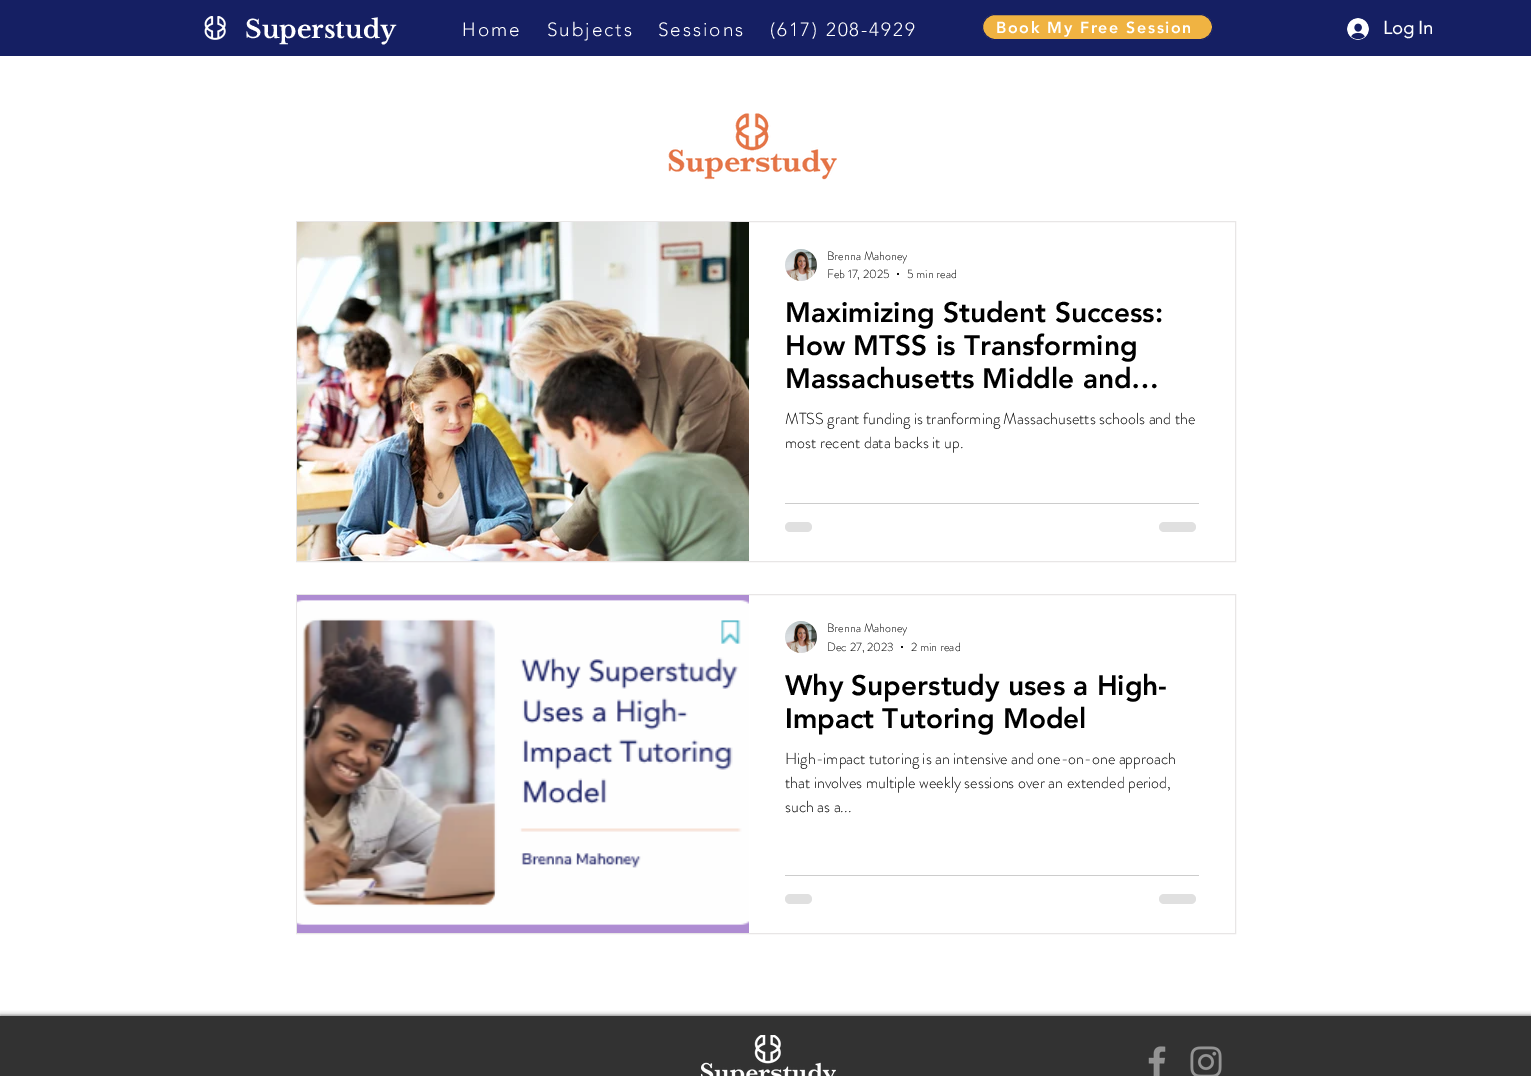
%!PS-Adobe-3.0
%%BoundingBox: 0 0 1531 1076
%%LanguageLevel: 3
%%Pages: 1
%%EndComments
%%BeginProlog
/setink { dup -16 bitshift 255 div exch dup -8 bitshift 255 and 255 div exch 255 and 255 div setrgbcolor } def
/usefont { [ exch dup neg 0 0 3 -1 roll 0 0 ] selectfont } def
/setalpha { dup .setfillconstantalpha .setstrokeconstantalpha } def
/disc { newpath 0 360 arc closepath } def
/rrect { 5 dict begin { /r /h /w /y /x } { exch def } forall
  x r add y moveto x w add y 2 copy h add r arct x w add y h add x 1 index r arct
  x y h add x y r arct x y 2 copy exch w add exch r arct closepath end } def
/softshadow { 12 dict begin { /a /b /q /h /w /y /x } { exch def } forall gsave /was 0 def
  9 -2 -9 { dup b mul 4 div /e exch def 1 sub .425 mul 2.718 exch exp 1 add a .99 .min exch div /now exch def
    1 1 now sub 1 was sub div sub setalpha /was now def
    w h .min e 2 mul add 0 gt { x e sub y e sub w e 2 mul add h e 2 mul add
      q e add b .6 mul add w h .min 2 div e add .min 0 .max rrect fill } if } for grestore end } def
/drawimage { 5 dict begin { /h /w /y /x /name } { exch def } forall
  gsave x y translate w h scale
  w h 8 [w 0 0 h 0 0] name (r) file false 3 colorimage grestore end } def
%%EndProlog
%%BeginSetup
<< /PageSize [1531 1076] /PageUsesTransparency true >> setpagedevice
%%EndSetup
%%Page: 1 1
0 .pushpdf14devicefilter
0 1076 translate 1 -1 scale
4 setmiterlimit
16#FFFFFF setink
0 0 1531 1076 rectfill
16#151F63 setink
0 0 1531 56 rectfill
(img1.raw) 204 16 22 24 drawimage
/LibreBaskerville-Bold 25 usefont
16#FFFFFF setink
245 38 moveto (Superstudy) show
/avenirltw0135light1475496-Light 19 usefont
462 36 moveto 1.9 0 (Home) ashow
547 36 moveto 1.9 0 (Subjects) ashow
658 36 moveto 1.9 0 (Sessions) ashow
770 36 moveto 1.9 0 (\(617\) 208-4929) ashow
16#F0B342 setink
982.5 14.5 230 25 12.5 rrect gsave fill grestore
16#151F63 setink
stroke
/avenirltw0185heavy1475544-Black 16 usefont
16#FFFFFF setink
996 33 moveto 1.6 0 (Book My Free Session) ashow
(img2.raw) 1347 18 22 22 drawimage
/avenirltw0135light1475496-Bold 18 usefont
1383 34 moveto (Log In) show
(img3.raw) 668 113 169 67 drawimage
16#E8E6E6 setink
296.5 221.5 939 340 rectstroke
(img4.raw) 297 222 452 339 drawimage
(img5.raw) 785 249 32 32 drawimage
/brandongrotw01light-Light 12 usefont
16#000000 setink
827 260 moveto (Brenna Mahoney) show
827 278 moveto (Feb 17, 2025) show
898 274 1 disc fill
907 278 moveto (5 min read) show
/avenirltw0185heavy1475544-Black 28 usefont
[
    [(Maximizing Student Success:) 785 322]
    [(How MTSS is Transforming) 785 355]
    [(Massachusetts Middle and…) 785 388]
] { aload pop moveto show } forall
/brandongrotw01light-Light 16 usefont
785 424 moveto (MTSS grant funding is tranforming Massachusetts schools and the) show
785 448 moveto (most recent data backs it up.) show
16#CCCCCC setink
785 503 414 1 rectfill
16#E0E0E0 setink
785 522 27 10 5 rrect fill
1159 522 37 10 5 rrect fill
16#E8E6E6 setink
296.5 594.5 939 339 rectstroke
(img6.raw) 297 595 452 338 drawimage
(img5.raw) 785 621 32 32 drawimage
/brandongrotw01light-Light 12 usefont
16#000000 setink
827 632 moveto (Brenna Mahoney) show
827 651 moveto (Dec 27, 2023) show
902 647 1 disc fill
911 651 moveto (2 min read) show
/avenirltw0185heavy1475544-Black 28 usefont
785 695 moveto (Why Superstudy uses a High-) show
785 728 moveto (Impact Tutoring Model) show
/brandongrotw01light-Light 16 usefont
[
    [(High-impact tutoring is an intensive and one-on-one approach) 785 764]
    [(that involves multiple weekly sessions over an extended period,) 785 788]
    [(such as a...) 785 812]
] { aload pop moveto show } forall
16#CCCCCC setink
785 875 414 1 rectfill
16#E0E0E0 setink
785 894 27 10 5 rrect fill
1159 894 37 10 5 rrect fill
16#000000 setink
0 1016 1531 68 0 2.5 0.7 softshadow
16#323232 setink
0 1016 1531 60 rectfill
(img7.raw) 701 1035 135 41 drawimage
(img8.raw) 1148 1046 18 30 drawimage
(img9.raw) 1190 1046 32 30 drawimage
.poppdf14devicefilter showpage
%%EOF
